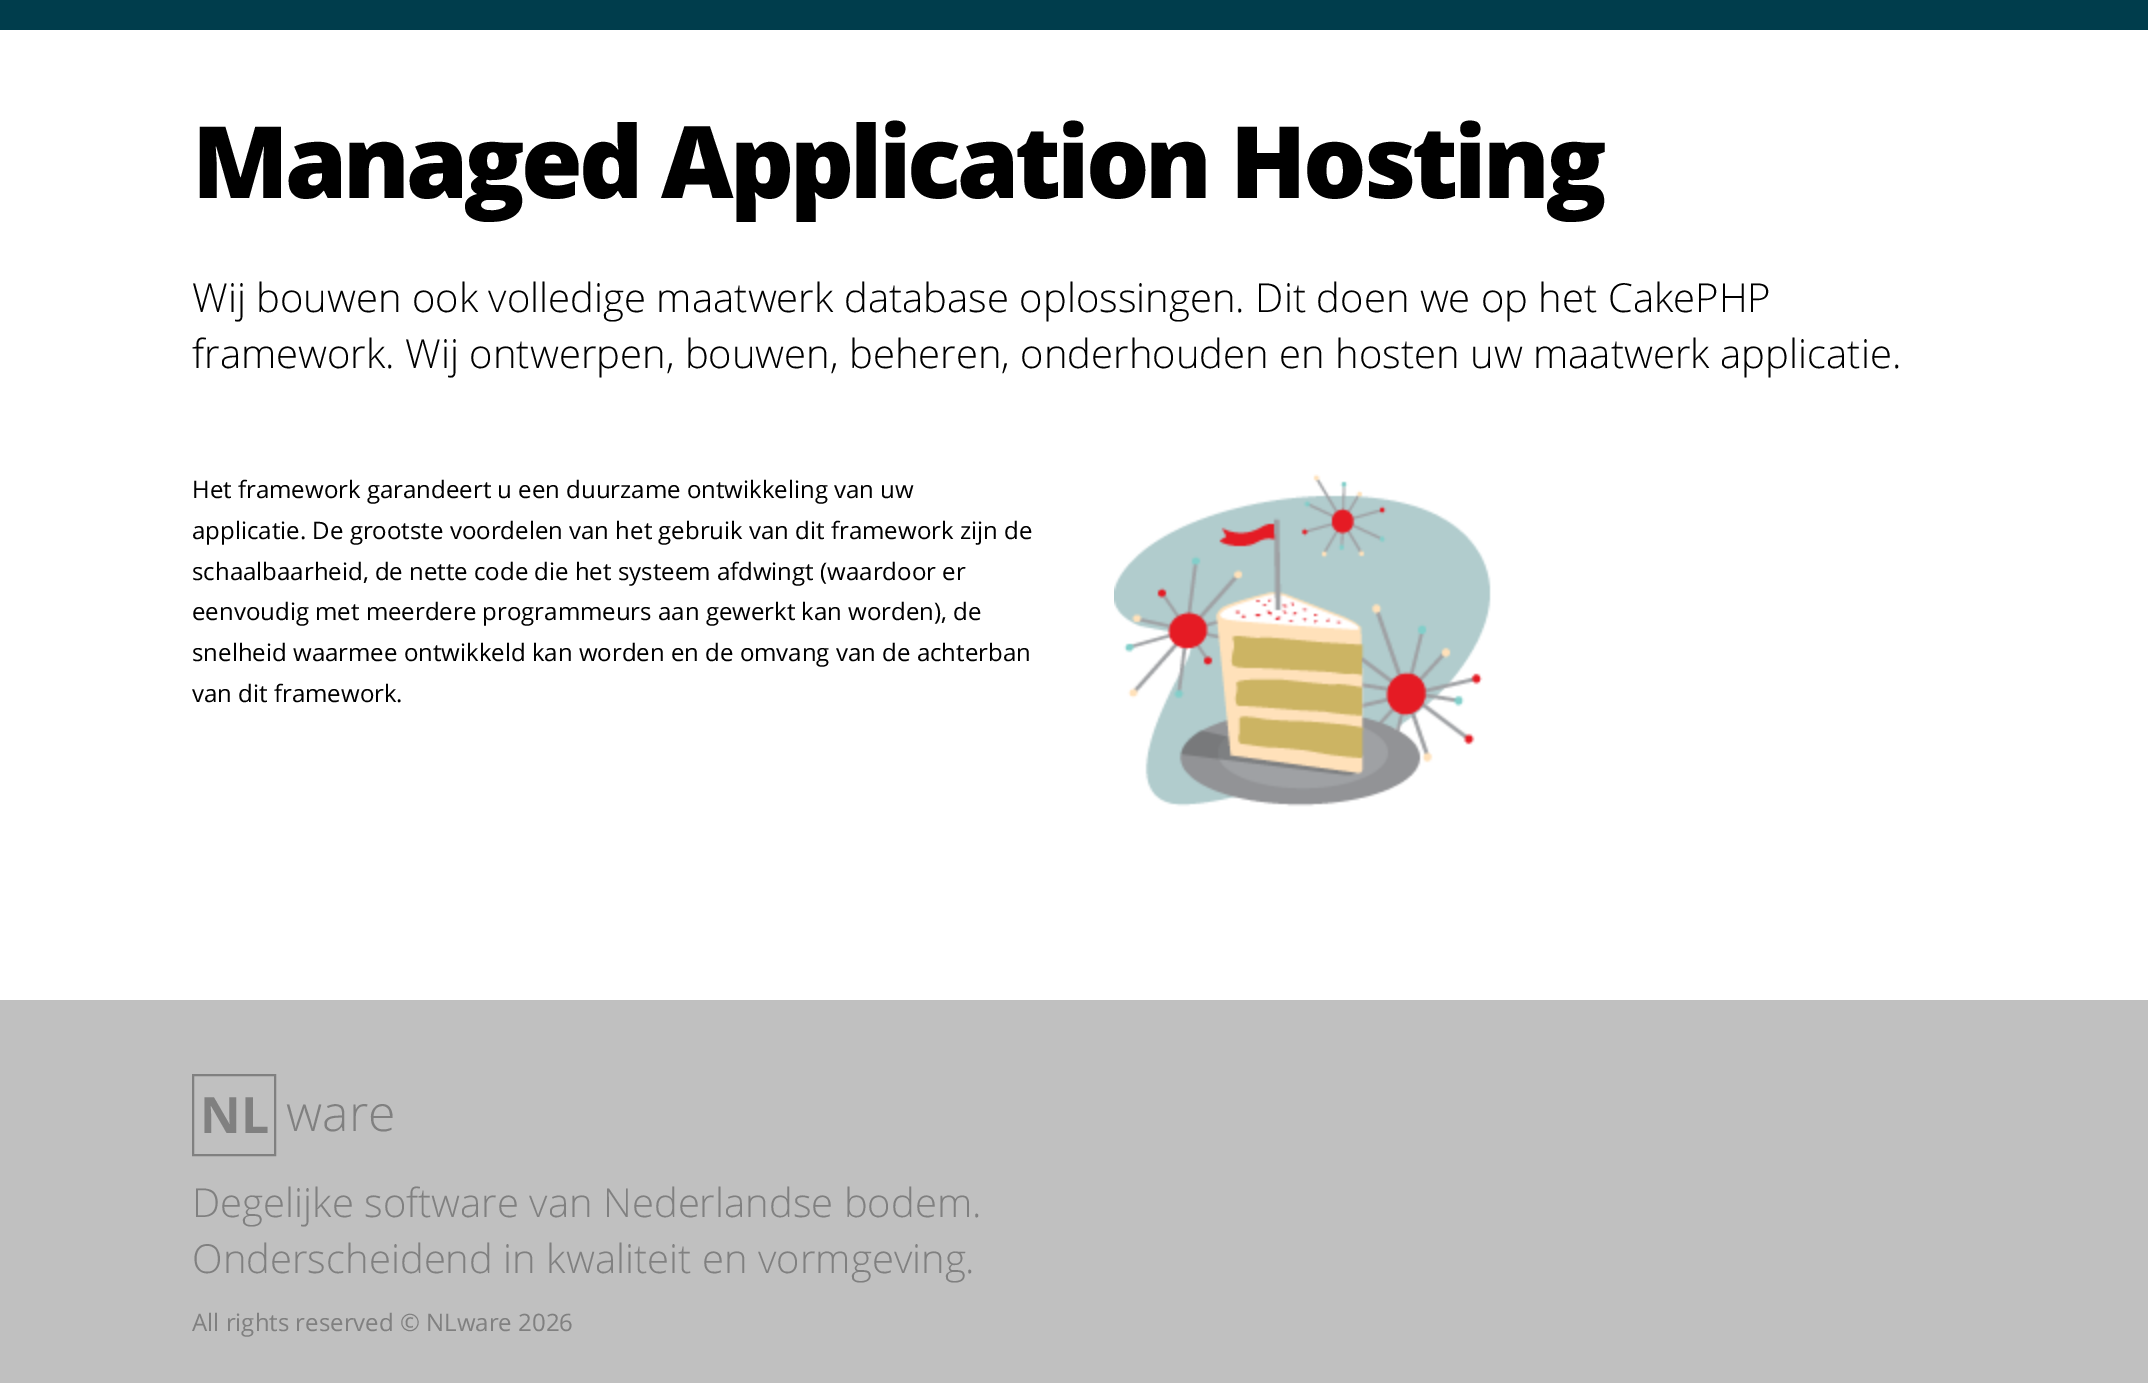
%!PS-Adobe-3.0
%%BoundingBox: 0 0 2148 1383
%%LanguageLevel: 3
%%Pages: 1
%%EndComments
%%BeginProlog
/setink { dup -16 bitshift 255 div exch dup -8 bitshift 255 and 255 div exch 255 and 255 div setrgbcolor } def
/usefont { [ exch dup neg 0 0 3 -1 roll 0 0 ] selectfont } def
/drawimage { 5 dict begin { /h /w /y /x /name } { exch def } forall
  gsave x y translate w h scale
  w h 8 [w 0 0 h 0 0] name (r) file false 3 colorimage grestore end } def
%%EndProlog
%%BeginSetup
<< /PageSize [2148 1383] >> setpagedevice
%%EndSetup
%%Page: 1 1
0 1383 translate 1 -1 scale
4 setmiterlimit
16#FFFFFF setink
0 0 2148 1383 rectfill
16#003D4C setink
0 0 2148 30 rectfill
/OpenSans-ExtraBold 100 usefont
16#000000 setink
192 198 moveto -4 0 (Managed Application Hosting) ashow
/OpenSans-Light 40 usefont
192 312 moveto (Wij bouwen ook volledige maatwerk database oplossingen. Dit doen we op het CakePHP) show
192 368 moveto (framework. Wij ontwerpen, bouwen, beheren, onderhouden en hosten uw maatwerk applicatie.) show
/OpenSans-Regular 24 usefont
[
    [(Het framework garandeert u een duurzame ontwikkeling van uw) 192 498]
    [(applicatie. De grootste voordelen van het gebruik van dit framework zijn de) 192 539]
    [(schaalbaarheid, de nette code die het systeem afdwingt \(waardoor er) 192 580]
    [(eenvoudig met meerdere programmeurs aan gewerkt kan worden\), de) 192 620]
    [(snelheid waarmee ontwikkeld kan worden en de omvang van de achterban) 192 661]
    [(van dit framework.) 192 702]
] { aload pop moveto show } forall
(img1.raw) 1114 474 377 333 drawimage
16#C0C0C0 setink
0 1000 2148 383 rectfill
16#808080 setink
2 setlinewidth
193 1075 82 80 rectstroke
/OpenSans-Bold 50 usefont
200 1133 moveto (NL) show
/OpenSans-Light 50 usefont
286 1131 moveto (ware) show
/OpenSans-Light 40 usefont
192 1217 moveto (Degelijke software van Nederlandse bodem.) show
192 1273 moveto (Onderscheidend in kwaliteit en vormgeving.) show
/OpenSans-Regular 24 usefont
192 1331 moveto (All rights reserved © NLware 2026) show
showpage
%%EOF
